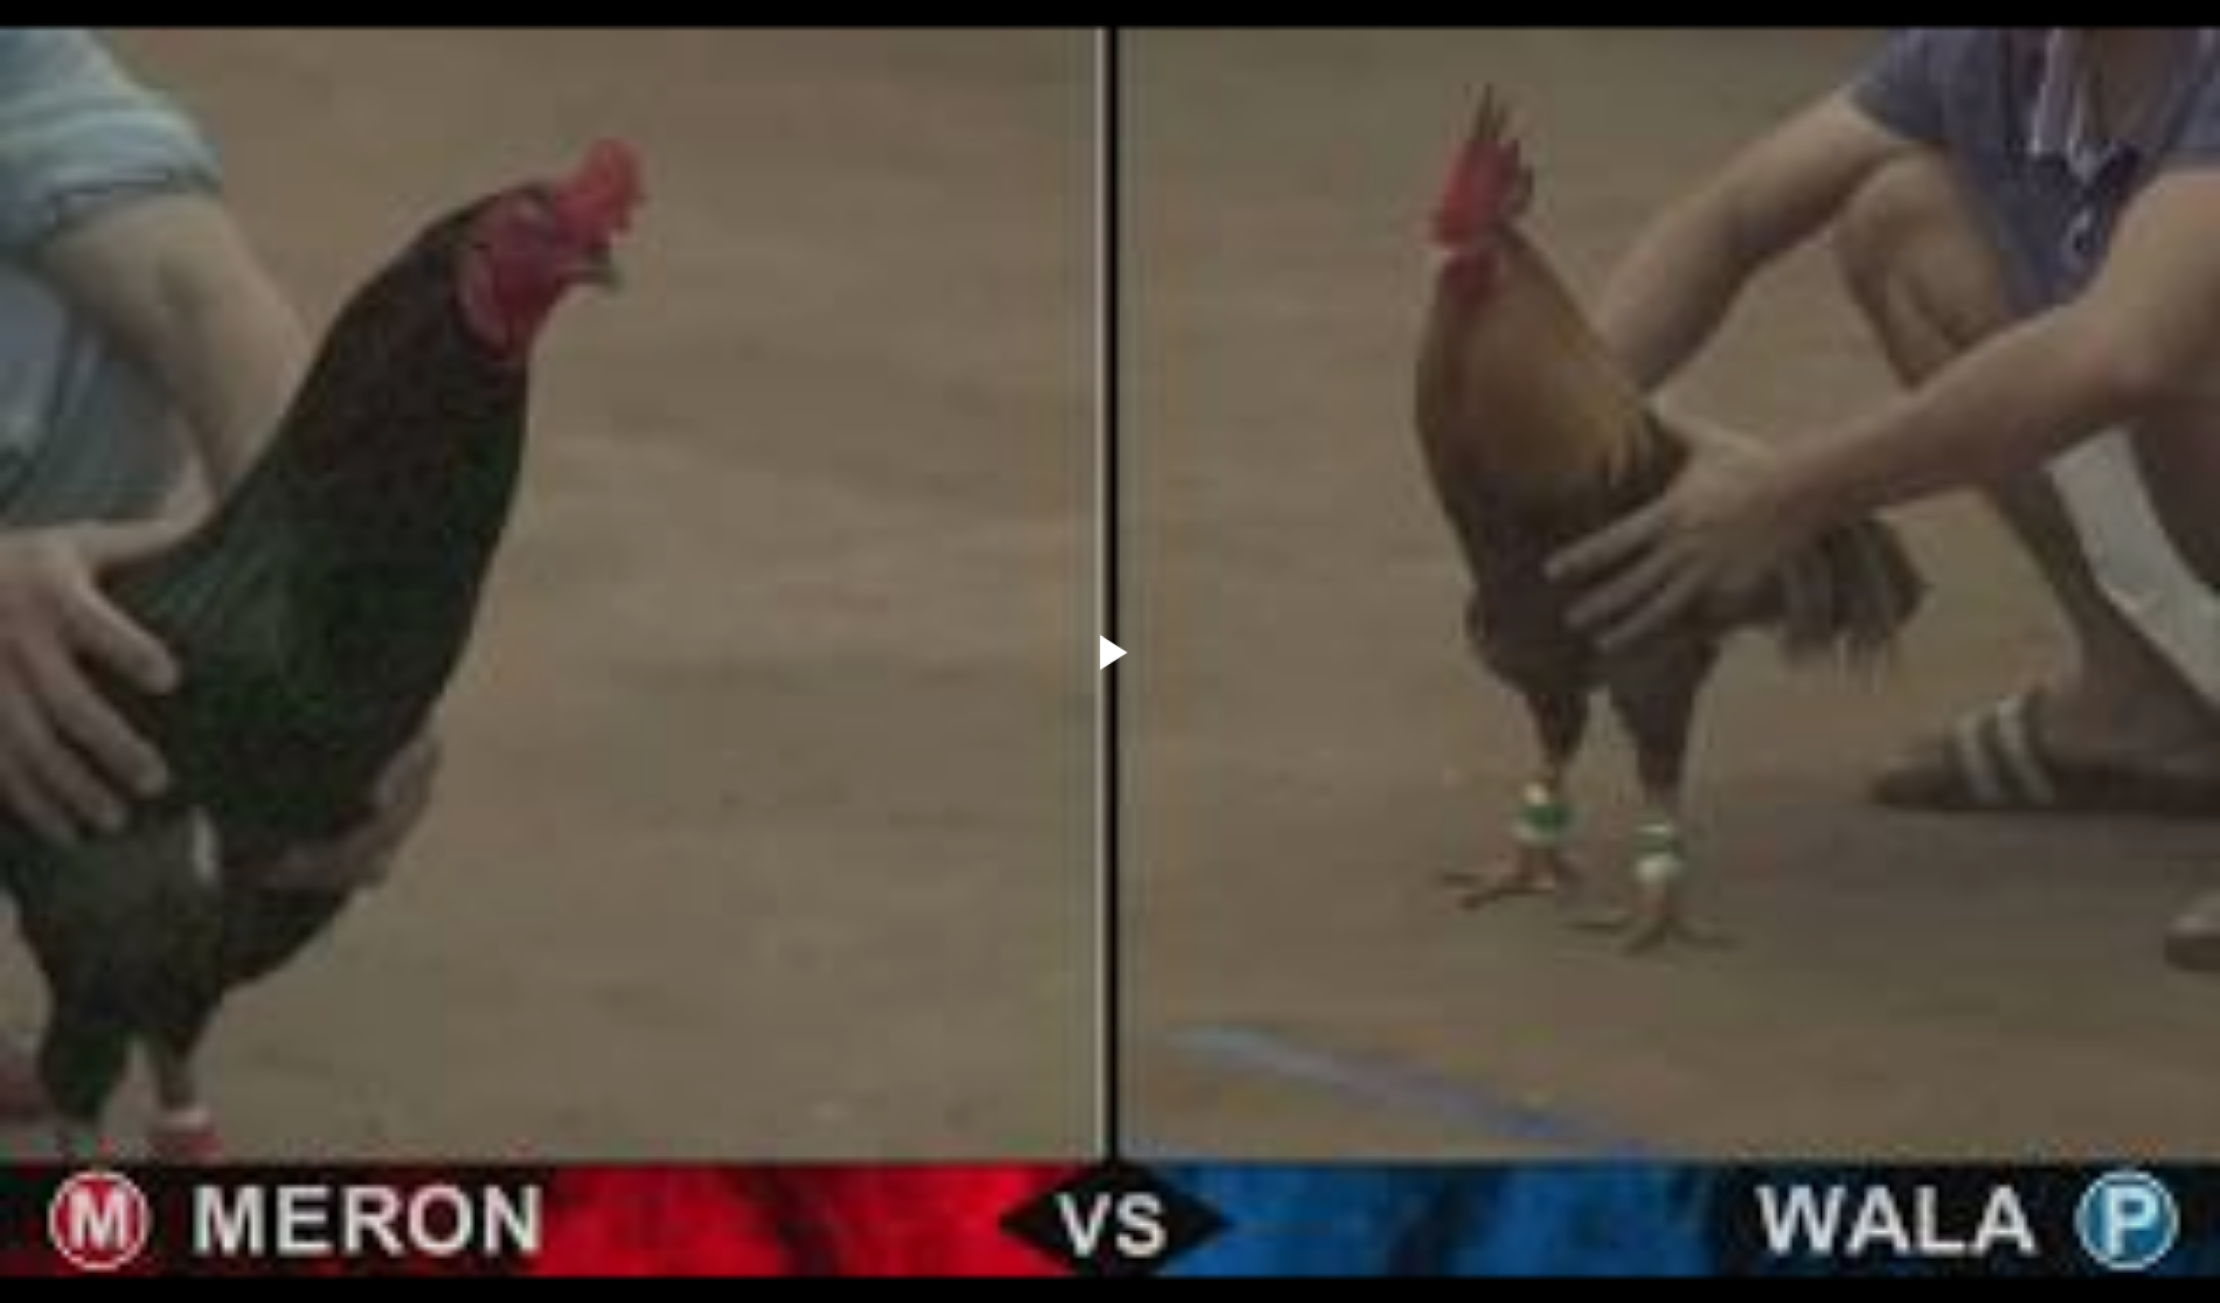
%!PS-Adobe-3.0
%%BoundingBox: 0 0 2220 1303
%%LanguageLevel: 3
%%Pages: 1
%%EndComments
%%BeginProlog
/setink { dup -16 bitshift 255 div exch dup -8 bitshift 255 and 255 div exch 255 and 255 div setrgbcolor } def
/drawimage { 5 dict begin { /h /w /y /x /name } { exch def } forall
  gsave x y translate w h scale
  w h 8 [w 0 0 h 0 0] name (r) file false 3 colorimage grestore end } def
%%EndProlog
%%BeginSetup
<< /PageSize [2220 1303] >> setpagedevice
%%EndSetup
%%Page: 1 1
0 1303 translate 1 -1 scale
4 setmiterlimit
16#000000 setink
0 0 2220 1303 rectfill
(img1.raw) 0 23 2220 1257 drawimage
(img2.raw) 1099 634 29 37 drawimage
showpage
%%EOF
